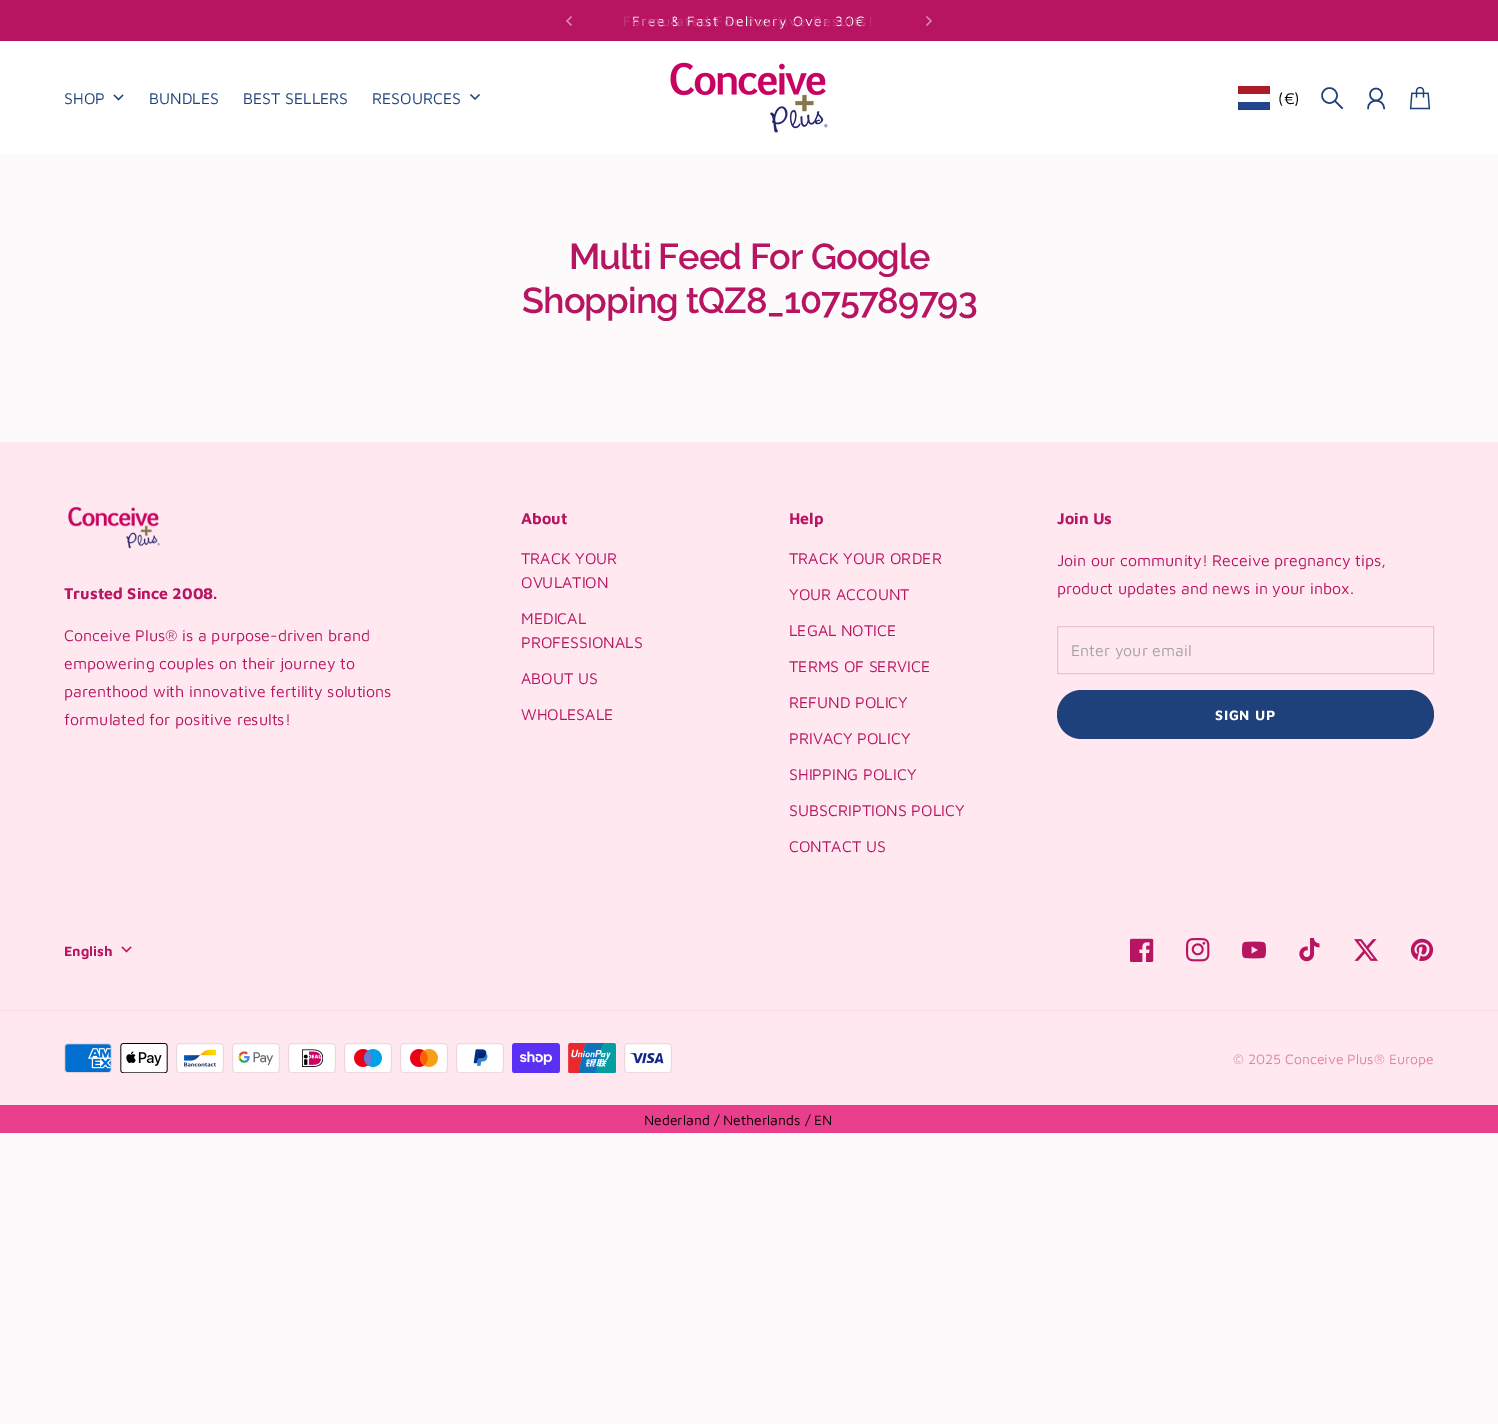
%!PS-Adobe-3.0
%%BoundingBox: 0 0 1498 1424
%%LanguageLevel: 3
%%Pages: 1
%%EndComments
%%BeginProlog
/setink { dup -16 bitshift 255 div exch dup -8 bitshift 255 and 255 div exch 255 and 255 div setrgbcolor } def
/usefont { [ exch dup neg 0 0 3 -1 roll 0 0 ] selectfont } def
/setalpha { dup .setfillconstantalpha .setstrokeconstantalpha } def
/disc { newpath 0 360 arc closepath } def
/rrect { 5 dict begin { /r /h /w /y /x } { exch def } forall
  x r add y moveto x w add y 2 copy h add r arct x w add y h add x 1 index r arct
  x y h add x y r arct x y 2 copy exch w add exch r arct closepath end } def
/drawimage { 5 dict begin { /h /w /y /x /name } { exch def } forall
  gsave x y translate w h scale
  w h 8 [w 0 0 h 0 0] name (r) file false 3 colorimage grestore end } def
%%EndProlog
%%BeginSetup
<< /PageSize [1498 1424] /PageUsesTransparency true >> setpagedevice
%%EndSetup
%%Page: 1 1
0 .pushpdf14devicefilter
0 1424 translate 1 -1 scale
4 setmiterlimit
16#FCFAFB setink
0 0 1498 1424 rectfill
16#B71561 setink
0 0 1498 41 rectfill
16#DB8AB0 setink
1.2 setlinewidth
2 setlinecap
571 25 moveto 567 21 lineto 571 17 lineto stroke
/MavenPro-Regular 14 usefont
16#FFFFFF setink
632 26 moveto 1.4 0 (Free & Fast Delivery Over 30€) ashow
16#C4417E setink
623 26 moveto 1.4 0 (Formulated For Positive Results!) ashow
16#DB8AB0 setink
927 25 moveto 931 21 lineto 927 17 lineto stroke
16#FFFFFF setink
0 41 1498 113 rectfill
/MavenPro-Regular 16 usefont
16#1E417C setink
64 104 moveto (SHOP) show
1.4 setlinewidth
114.5 95.5 moveto 118.5 99.5 lineto 122.5 95.5 lineto stroke
[
    [(BUNDLES) 149 104]
    [(BEST SELLERS) 243 104]
    [(RESOURCES) 372 104]
] { aload pop moveto show } forall
471 95 moveto 475 99 lineto 479 95 lineto stroke
(img1.raw) 670 62 158 71 drawimage
16#21468B setink
1238 102 32 8 rectfill
16#AE1C28 setink
1238 86 32 8 rectfill
0.05 setalpha
16#000000 setink
1 setlinewidth
0 setlinecap
1238.5 86.5 31 23 rectstroke
1 setalpha
1278 104 moveto (\(€\)) show
16#1E417C setink
1.5 setlinewidth
2 setlinecap
1342 108 moveto 1335 101 lineto stroke
0 setlinecap
1329.5 95.5 7.5 disc stroke
1376 94.5 6 disc stroke
2 setlinecap
1384 108.5 moveto 1384 98 1368 98 1368 108.5 curveto stroke
(img2.raw) 1409 86 22 24 drawimage
/Raleway-SemiBold 36 usefont
16#B71561 setink
569 269 moveto -0.9 0 (Multi Feed For Google) ashow
522 313 moveto -0.9 0 (Shopping tQZ8_1075789793) ashow
16#FFE8EF setink
0 442 1498 663 rectfill
(img3.raw) 68 506 92 43 drawimage
/MavenPro-Bold 16 usefont
16#B71561 setink
64 599 moveto (Trusted Since 2008.) show
/MavenPro-Regular 16 usefont
[
    [(Conceive Plus® is a purpose-driven brand) 64 641]
    [(empowering couples on their journey to) 64 669]
    [(parenthood with innovative fertility solutions) 64 697]
    [(formulated for positive results!) 64 725]
] { aload pop moveto show } forall
/MavenPro-Bold 16 usefont
521 524 moveto (About) show
/MavenPro-Regular 16 usefont
[
    [(TRACK YOUR) 521 564]
    [(OVULATION) 521 588]
    [(MEDICAL) 521 624]
    [(PROFESSIONALS) 521 648]
    [(ABOUT US) 521 684]
    [(WHOLESALE) 521 720]
] { aload pop moveto show } forall
/MavenPro-Bold 16 usefont
789 524 moveto (Help) show
/MavenPro-Regular 16 usefont
[
    [(TRACK YOUR ORDER) 789 564]
    [(YOUR ACCOUNT) 789 600]
    [(LEGAL NOTICE) 789 636]
    [(TERMS OF SERVICE) 789 672]
    [(REFUND POLICY) 789 708]
    [(PRIVACY POLICY) 789 744]
    [(SHIPPING POLICY) 789 780]
    [(SUBSCRIPTIONS POLICY) 789 816]
    [(CONTACT US) 789 852]
] { aload pop moveto show } forall
/MavenPro-Bold 16 usefont
1057 524 moveto (Join Us) show
/MavenPro-Regular 16 usefont
1057 566 moveto (Join our community! Receive pregnancy tips,) show
1057 594 moveto (product updates and news in your inbox.) show
16#F1BED3 setink
1 setlinewidth
0 setlinecap
1057.5 626.5 376 47 rectstroke
16#A3A3A3 setink
1071 656 moveto (Enter your email) show
16#1E417C setink
1057 690 377 49 24.5 rrect fill
/MavenPro-Bold 14 usefont
16#FFFFFF setink
1215 720 moveto 0.75 0 (SIGN UP) ashow
16#B71561 setink
64 956 moveto (English) show
1.4 setlinewidth
2 setlinecap
122.5 947.5 moveto 126.5 951.5 lineto 130.5 947.5 lineto stroke
(img4.raw) 1130 938 24 24 drawimage
(img5.raw) 1186 938 24 24 drawimage
(img6.raw) 1242 941 24 18 drawimage
(img7.raw) 1299 938 21 24 drawimage
(img8.raw) 1354 939 24 22 drawimage
(img9.raw) 1410 938 24 23 drawimage
16#FBDBE6 setink
0 1010 1498 1 rectfill
(img10.raw) 64 1043 48 30 drawimage
(img11.raw) 120 1043 48 30 drawimage
(img12.raw) 176 1043 48 30 drawimage
(img13.raw) 232 1043 48 30 drawimage
(img14.raw) 288 1043 48 30 drawimage
(img15.raw) 344 1043 48 30 drawimage
(img16.raw) 400 1043 48 30 drawimage
(img17.raw) 456 1043 48 30 drawimage
(img18.raw) 512 1043 48 30 drawimage
(img19.raw) 568 1043 48 30 drawimage
(img20.raw) 624 1043 48 30 drawimage
/MavenPro-Regular 14 usefont
16#DB7FA8 setink
1233 1064 moveto (© 2025 Conceive Plus® Europe) show
16#E83E8C setink
0 1105 1498 28 rectfill
16#000000 setink
644 1125 moveto (Nederland / Netherlands / EN) show
.poppdf14devicefilter showpage
%%EOF
